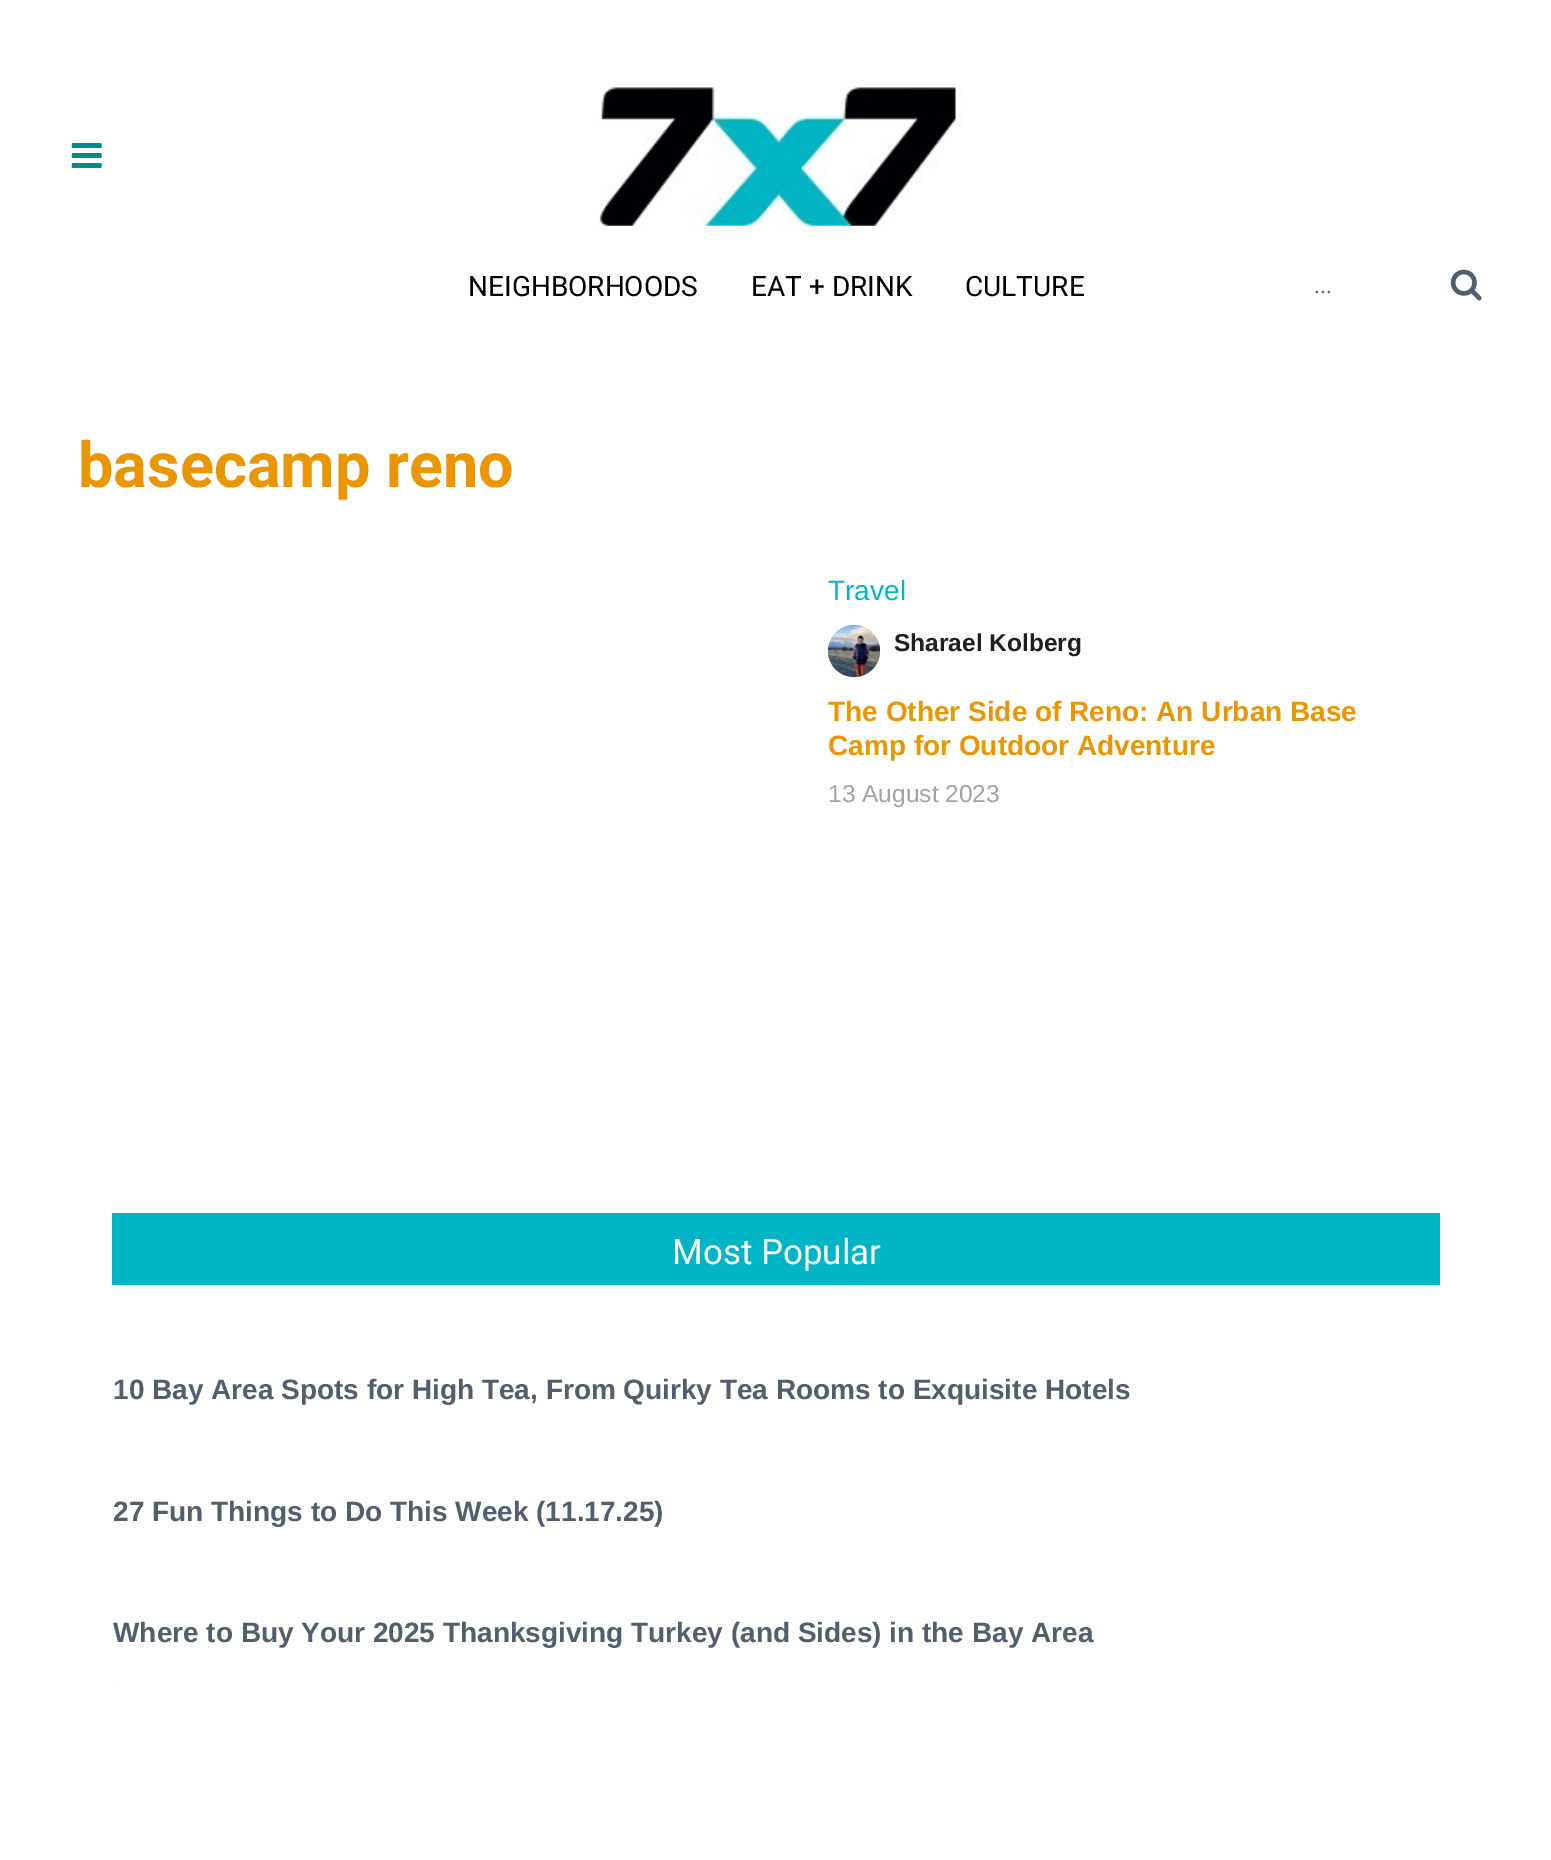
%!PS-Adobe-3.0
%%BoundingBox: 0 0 1551 1860
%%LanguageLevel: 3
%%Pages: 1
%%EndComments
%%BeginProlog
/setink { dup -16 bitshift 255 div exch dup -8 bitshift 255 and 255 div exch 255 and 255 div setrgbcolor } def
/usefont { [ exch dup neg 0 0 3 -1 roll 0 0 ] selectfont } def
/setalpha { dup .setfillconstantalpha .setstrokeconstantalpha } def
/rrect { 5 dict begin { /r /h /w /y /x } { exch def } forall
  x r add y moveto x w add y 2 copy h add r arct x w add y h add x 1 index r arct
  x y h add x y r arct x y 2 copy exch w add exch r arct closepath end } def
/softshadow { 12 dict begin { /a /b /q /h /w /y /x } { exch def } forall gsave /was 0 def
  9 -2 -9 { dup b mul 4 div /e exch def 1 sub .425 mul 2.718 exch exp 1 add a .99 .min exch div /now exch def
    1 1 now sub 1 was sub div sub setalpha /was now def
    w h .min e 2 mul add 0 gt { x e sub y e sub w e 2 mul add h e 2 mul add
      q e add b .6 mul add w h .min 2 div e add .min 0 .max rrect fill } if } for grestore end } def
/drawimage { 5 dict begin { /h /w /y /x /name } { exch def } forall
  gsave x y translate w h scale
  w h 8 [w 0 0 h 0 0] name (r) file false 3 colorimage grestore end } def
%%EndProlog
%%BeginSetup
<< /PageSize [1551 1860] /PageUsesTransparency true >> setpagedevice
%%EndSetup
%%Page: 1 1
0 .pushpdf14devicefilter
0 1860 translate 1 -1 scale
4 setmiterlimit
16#FFFFFF setink
0 0 1551 1860 rectfill
(img1.raw) 71 143 31 25 drawimage
(img2.raw) 597 86 367 140 drawimage
/Roboto-Regular 28 usefont
16#000000 setink
[
    [(NEIGHBORHOODS) 468 296]
    [(EAT + DRINK) 751 296]
    [(CULTURE) 965 296]
] { aload pop moveto show } forall
(img3.raw) 1450 269 32 32 drawimage
/Roboto-Regular 23 usefont
16#505E6D setink
1314 293 moveto (...) show
/Roboto-Bold 63 usefont
16#EA9603 setink
78 487 moveto (basecamp reno) show
/LiberationSans-Regular 28 usefont
16#00B6C4 setink
828 600 moveto (Travel) show
(img4.raw) 827 624 54 54 drawimage
/LiberationSans-Bold 24.5 usefont
16#1F1F1F setink
894 651 moveto (Sharael Kolberg) show
/LiberationSans-Bold 28 usefont
16#EA9603 setink
828 721 moveto (The Other Side of Reno: An Urban Base) show
828 755 moveto (Camp for Outdoor Adventure) show
/LiberationSans-Regular 24.5 usefont
16#A4A2A0 setink
828 802 moveto (13 August 2023) show
16#00B6C4 setink
112 1213 1328 72 rectfill
/Roboto-Regular 35 usefont
16#FFFFFF setink
672 1264 moveto (Most Popular) show
/LiberationSans-Bold 28 usefont
16#505E6D setink
[
    [(10 Bay Area Spots for High Tea, From Quirky Tea Rooms to Exquisite Hotels) 113 1399]
    [(27 Fun Things to Do This Week \(11.17.25\)) 113 1521]
    [(Where to Buy Your 2025 Thanksgiving Turkey \(and Sides\) in the Bay Area) 113 1642]
] { aload pop moveto show } forall
gsave
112 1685 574 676 rectclip
16#000000 setink
114 1689 570 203 5 9 0.15 softshadow
grestore
16#FFFFFF setink
112 1685 945 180 5 rrect fill
.poppdf14devicefilter showpage
%%EOF
